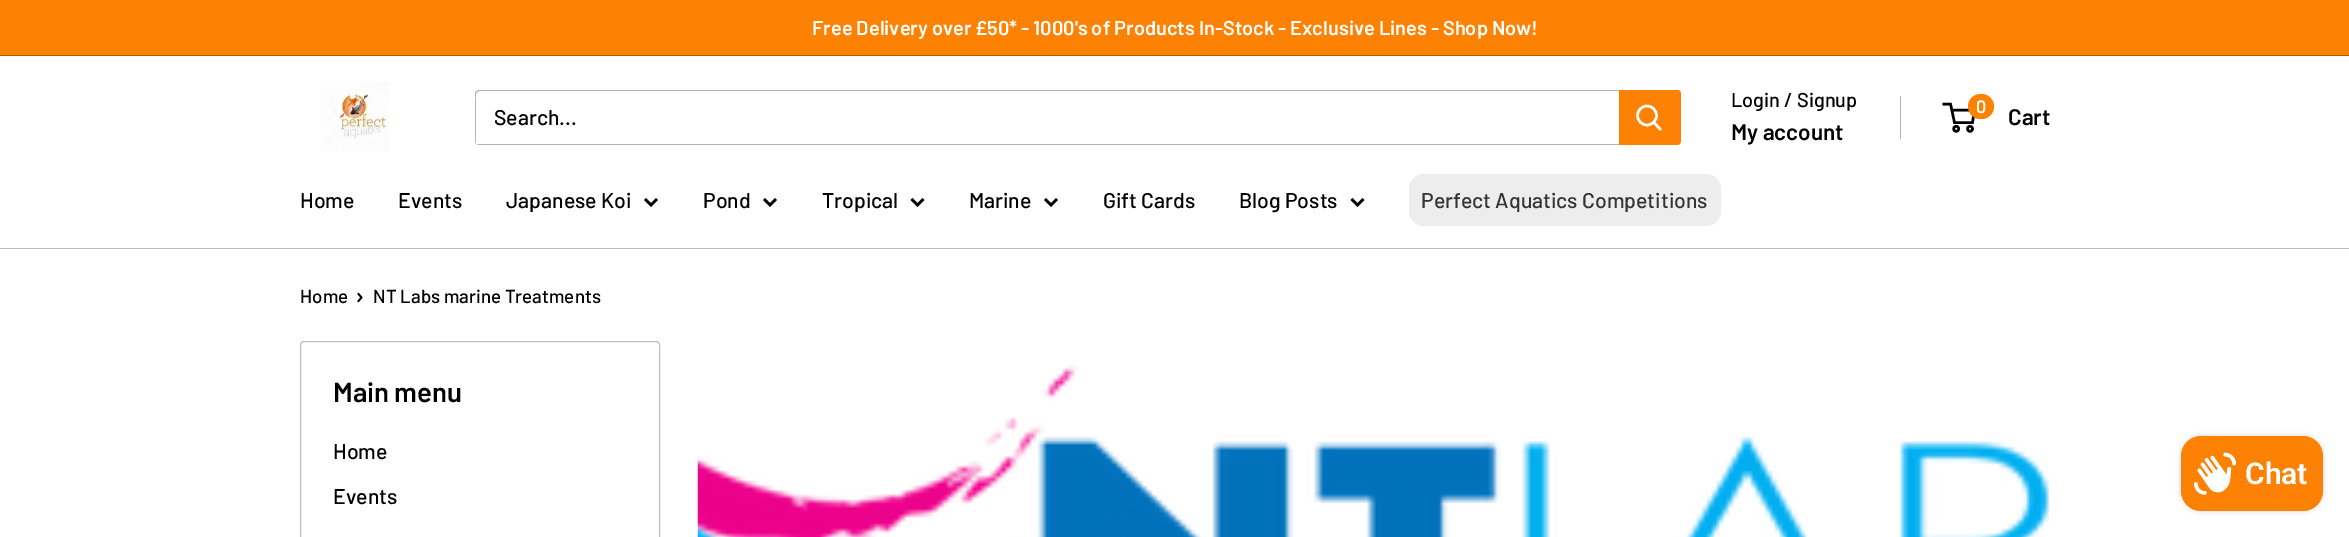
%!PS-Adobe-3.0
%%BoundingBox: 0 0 2349 537
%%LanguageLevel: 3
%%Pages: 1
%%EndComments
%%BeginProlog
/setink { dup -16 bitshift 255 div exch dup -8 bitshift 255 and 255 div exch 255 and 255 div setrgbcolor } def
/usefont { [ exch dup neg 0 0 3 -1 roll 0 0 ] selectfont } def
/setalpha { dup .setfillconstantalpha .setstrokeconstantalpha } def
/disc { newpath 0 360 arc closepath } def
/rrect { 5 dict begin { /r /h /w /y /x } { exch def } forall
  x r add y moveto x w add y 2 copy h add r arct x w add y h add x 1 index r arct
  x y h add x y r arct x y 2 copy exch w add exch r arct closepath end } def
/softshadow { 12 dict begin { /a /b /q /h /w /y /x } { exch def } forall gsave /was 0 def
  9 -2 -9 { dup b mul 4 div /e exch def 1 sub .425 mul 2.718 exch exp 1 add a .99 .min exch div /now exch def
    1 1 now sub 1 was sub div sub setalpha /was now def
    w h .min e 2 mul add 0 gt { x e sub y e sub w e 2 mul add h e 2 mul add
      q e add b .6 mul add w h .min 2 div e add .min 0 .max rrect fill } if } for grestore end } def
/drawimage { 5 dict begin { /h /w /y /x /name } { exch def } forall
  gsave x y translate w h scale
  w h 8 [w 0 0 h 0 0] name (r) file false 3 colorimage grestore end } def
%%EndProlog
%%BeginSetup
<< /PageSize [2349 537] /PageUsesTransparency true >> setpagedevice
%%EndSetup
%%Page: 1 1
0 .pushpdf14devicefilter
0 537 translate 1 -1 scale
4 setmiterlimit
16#FFFFFF setink
0 0 2349 537 rectfill
16#FD8204 setink
0 0 2349 55 rectfill
16#B15B03 setink
0 55 2349 1 rectfill
/Barlow-SemiBold 20 usefont
16#FFFFFF setink
812 35 moveto (Free Delivery over £50* - 1000's of Products In-Stock - Exclusive Lines - Shop Now!) show
(img1.raw) 321 82 69 70 drawimage
16#B3B3B3 setink
476 144 moveto 477 144 478 145 479 145 curveto 1677 145 lineto 1679 145 1681 143 1681 141 curveto 1681 94 lineto 1681 93 1681 92 1680 91 curveto 1680 140 lineto 1680 142 1678 144 1676 144 curveto 478 144 lineto closepath fill
480 91 moveto 1680 91 lineto 1679 90 1678 90 1677 90 curveto 479 90 lineto 477 90 475 92 475 94 curveto 475 141 lineto 475 142 476 143 476 144 curveto 476 103 lineto 476 100 474 91 480 91 curveto closepath fill
/Barlow-Medium 21.25 usefont
16#000000 setink
494 125 moveto (Search...) show
16#FD8204 setink
1619 90 moveto 1677 90 lineto 1679 90 1681 92 1681 94 curveto 1681 141 lineto 1681 143 1679 145 1677 145 curveto 1619 145 lineto closepath fill
16#FFFFFF setink
2.5 setlinewidth
2 setlinecap
1660 129 moveto 1654 122.5 lineto stroke
0 setlinecap
1647 115.5 9.5 disc stroke
/Barlow-Medium 20 usefont
16#000000 setink
1731 107 moveto (Login / Signup) show
16#B3B3B3 setink
1900 96 1 43 rectfill
/Barlow-SemiBold 22.5 usefont
16#000000 setink
1731 140 moveto (My account) show
1956.2 128.8 2.5 disc stroke
1970 128.8 2.5 disc stroke
1951.5 110 moveto 1974.5 110 lineto 1972.5 122.5 lineto 1954.5 122.5 lineto 1950.5 104 lineto 1942.5 104 lineto stroke
16#FD8204 setink
1968 94 26 25 12.5 rrect fill
/Barlow-SemiBold 18 usefont
16#FFFFFF setink
1976 113 moveto (0) show
/Barlow-SemiBold 22.5 usefont
16#000000 setink
2008 125 moveto (Cart) show
16#BEBEBE setink
0 248 2349 1 rectfill
/Barlow-Medium 21.25 usefont
16#000000 setink
[
    [(Home) 300 208]
    [(Events) 398 208]
    [(Japanese Koi) 506 208]
] { aload pop moveto show } forall
2 setlinecap
656 200 moveto 651 205 lineto 646 200 lineto stroke
703 208 moveto (Pond) show
775 200 moveto 770 205 lineto 765 200 lineto stroke
822 208 moveto (Tropical) show
922.5 200 moveto 917.5 205 lineto 912.5 200 lineto stroke
969 208 moveto (Marine) show
1056 200 moveto 1051 205 lineto 1046 200 lineto stroke
1103 208 moveto (Gift Cards) show
1239 208 moveto (Blog Posts) show
1362.5 200 moveto 1357.5 205 lineto 1352.5 200 lineto stroke
16#EDEDED setink
1409 174 312 52 15 rrect fill
16#333333 setink
1421 208 moveto (Perfect Aquatics Competitions) show
/Barlow-Medium 18.75 usefont
16#000000 setink
300 303 moveto (Home) show
1.7 setlinewidth
358.5 294 moveto 361.5 297.5 lineto 358.5 301 lineto stroke
373 303 moveto (NT Labs marine Treatments) show
16#BEBEBE setink
1 setlinewidth
0 setlinecap
300.5 341.5 359 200 3.5 rrect stroke
/Barlow-SemiBold 27.5 usefont
16#000000 setink
333 402 moveto (Main menu) show
/Barlow-Medium 21.25 usefont
333 459 moveto (Home) show
333 504 moveto (Events) show
(img2.raw) 697 365 1353 172 drawimage
2181 436 142 75 20 3 0.15 softshadow
16#FD8204 setink
2181 436 142 75 20 rrect fill
(img3.raw) 2194 452 42 43 drawimage
/Roboto-SemiBold 30 usefont
16#FFFFFF setink
2245 484 moveto (Chat) show
.poppdf14devicefilter showpage
%%EOF
